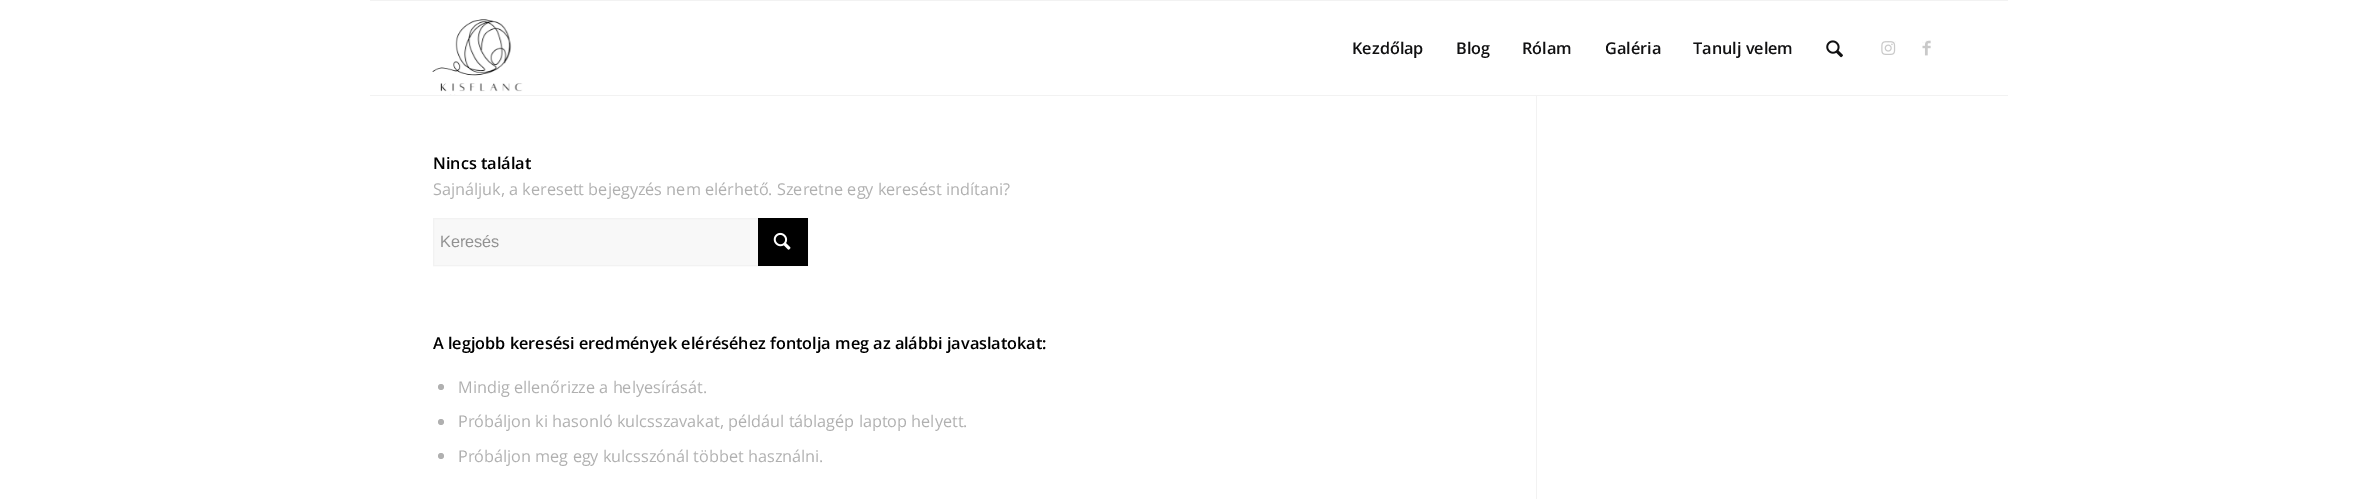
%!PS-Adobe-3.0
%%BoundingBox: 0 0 2377 499
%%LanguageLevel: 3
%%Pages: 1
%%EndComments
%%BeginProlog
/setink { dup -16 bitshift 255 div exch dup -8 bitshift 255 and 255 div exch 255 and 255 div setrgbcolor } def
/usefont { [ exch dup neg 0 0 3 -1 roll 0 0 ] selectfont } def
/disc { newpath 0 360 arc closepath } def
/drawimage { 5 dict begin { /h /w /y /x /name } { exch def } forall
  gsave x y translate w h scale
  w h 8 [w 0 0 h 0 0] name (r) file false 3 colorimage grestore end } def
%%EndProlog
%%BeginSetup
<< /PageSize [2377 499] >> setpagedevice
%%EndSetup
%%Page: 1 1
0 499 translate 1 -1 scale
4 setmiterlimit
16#FFFFFF setink
0 0 2377 499 rectfill
16#F2F2F2 setink
370 0 1638 1 rectfill
370 95 1638 1 rectfill
(img1.raw) 432 19 93 76 drawimage
/OpenSans-SemiBold 16.25 usefont
16#111112 setink
[
    [(Kezdőlap) 1352 54]
    [(Blog) 1456 54]
    [(Rólam) 1522 54]
    [(Galéria) 1605 54]
    [(Tanulj velem) 1693 54]
] { aload pop moveto show } forall
(img2.raw) 1826 40 17 18 drawimage
(img3.raw) 1881 41 15 14 drawimage
(img4.raw) 1922 40 9 16 drawimage
16#F2F2F2 setink
1536 96 1 403 rectfill
16#000000 setink
433 169 moveto (Nincs találat) show
/OpenSans-Regular 16.25 usefont
16#B0B0B0 setink
433 195 moveto (Sajnáljuk, a keresett bejegyzés nem elérhető. Szeretne egy keresést indítani?) show
16#F8F8F8 setink
434 219 324 46 rectfill
16#F2F2F2 setink
433.5 218.5 374 47 rectstroke
/LiberationSans-Regular 16.25 usefont
16#919191 setink
440 247 moveto (Keresés) show
16#000000 setink
758 218 50 48 rectfill
(img5.raw) 773 232 18 18 drawimage
/OpenSans-SemiBold 16.25 usefont
433 349 moveto (A legjobb keresési eredmények eléréséhez fontolja meg az alábbi javaslatokat:) show
16#B0B0B0 setink
441 387 3 disc fill
/OpenSans-Regular 16.25 usefont
458 393 moveto (Mindig ellenőrizze a helyesírását.) show
441 422 3 disc fill
458 427 moveto (Próbáljon ki hasonló kulcsszavakat, például táblagép laptop helyett.) show
441 456 3 disc fill
458 462 moveto (Próbáljon meg egy kulcsszónál többet használni.) show
showpage
%%EOF
